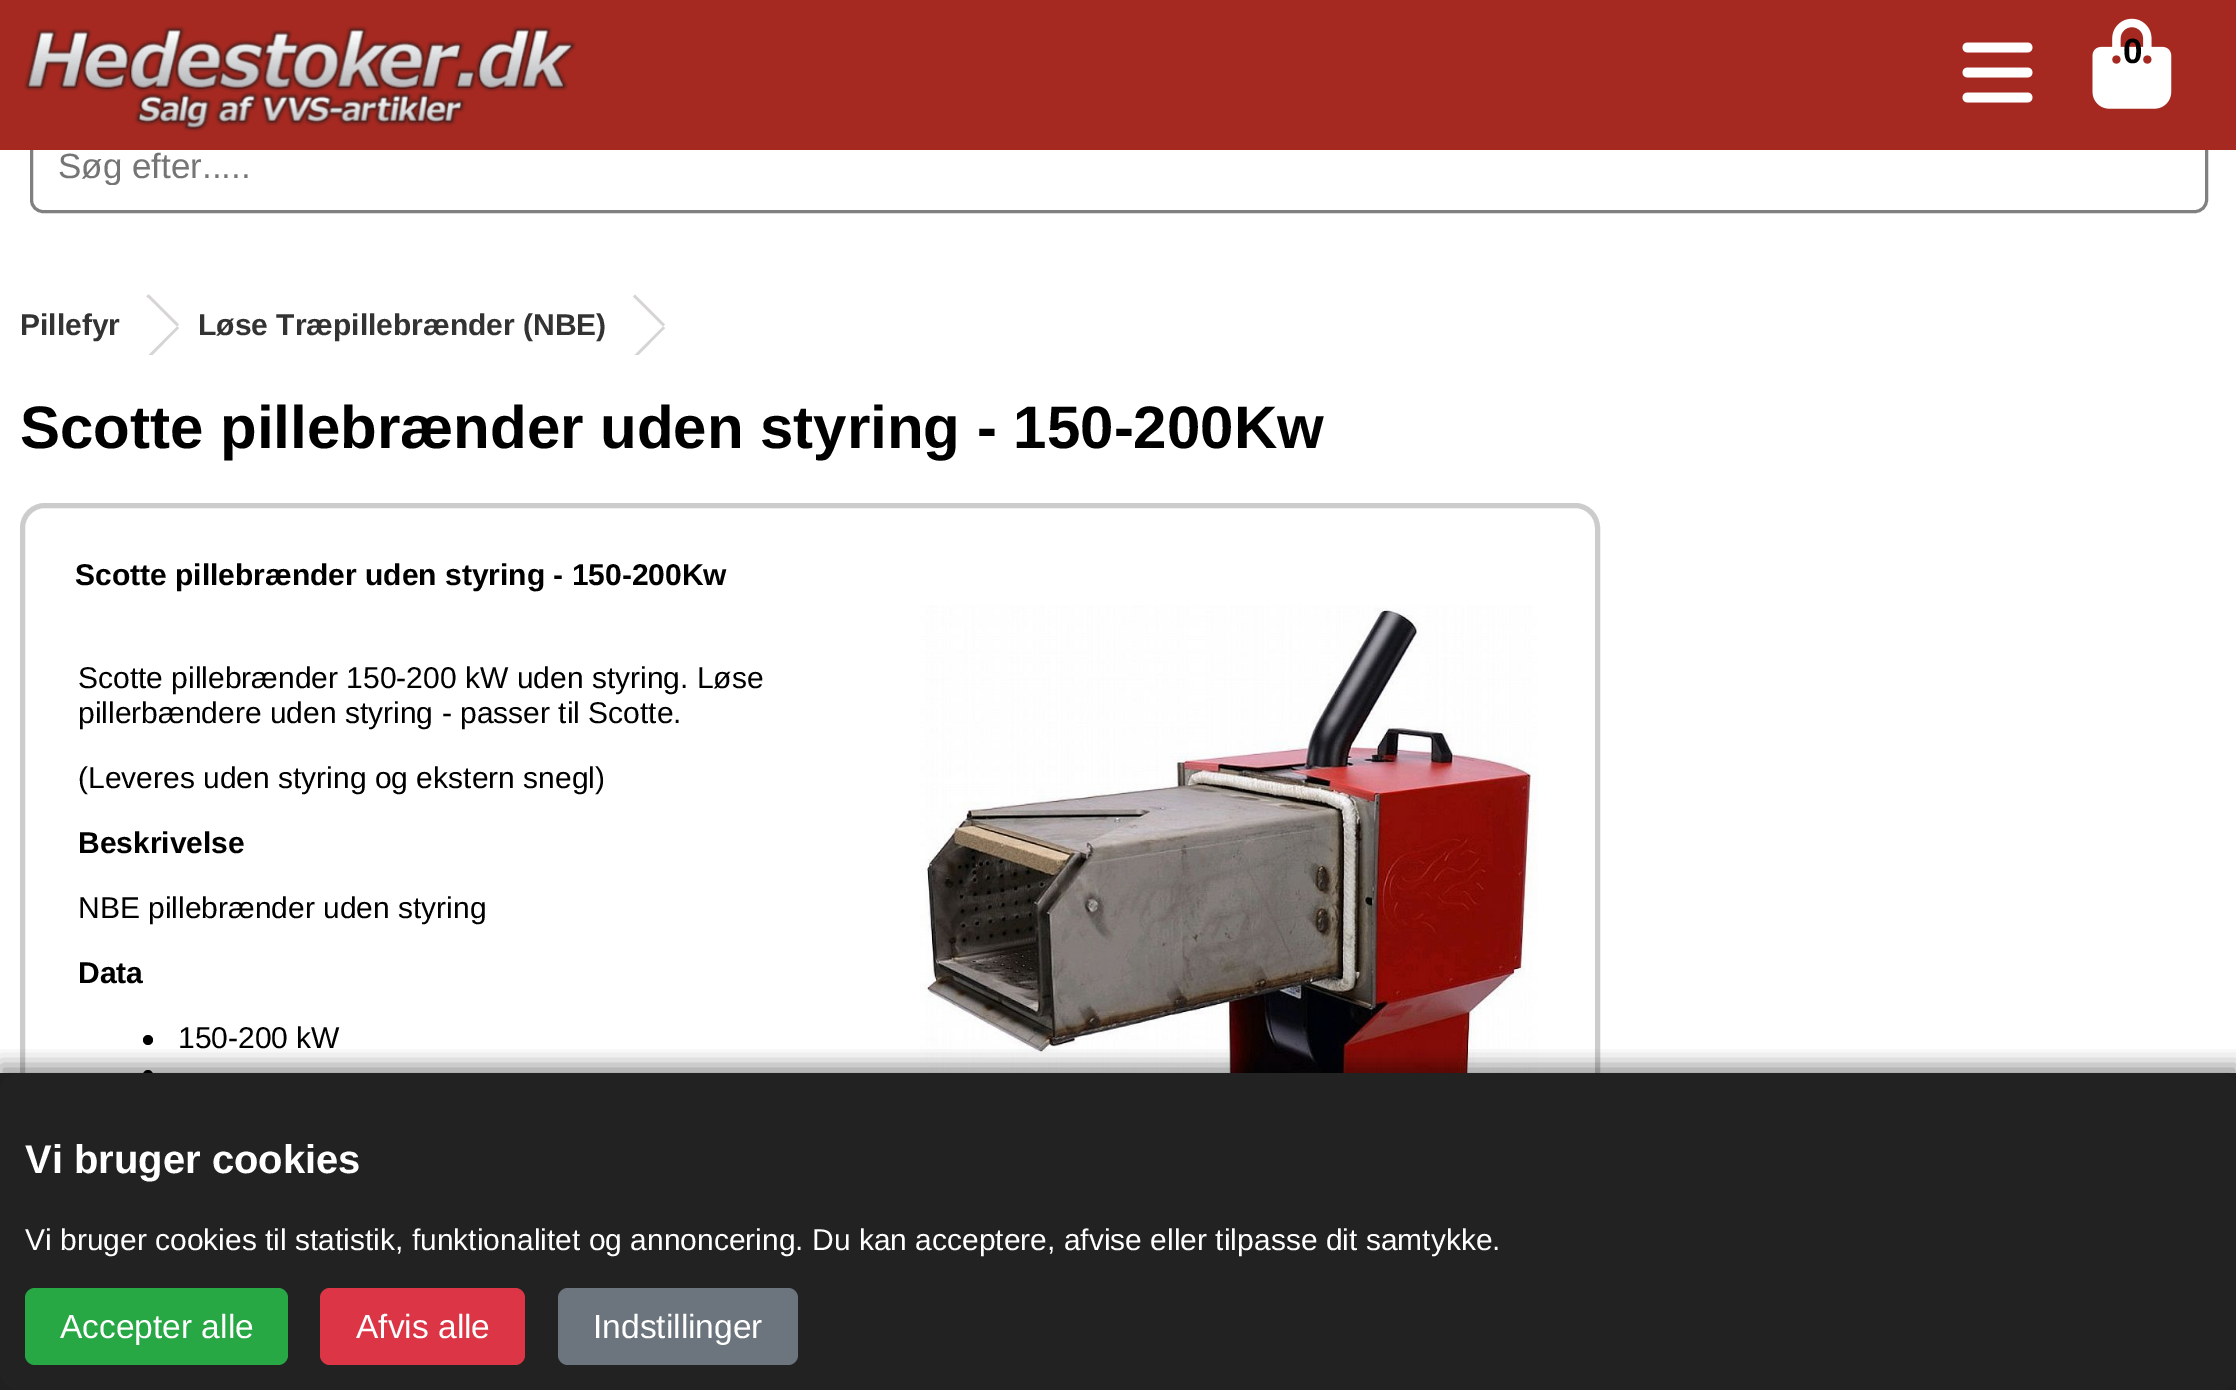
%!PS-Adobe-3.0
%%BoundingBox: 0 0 2236 1390
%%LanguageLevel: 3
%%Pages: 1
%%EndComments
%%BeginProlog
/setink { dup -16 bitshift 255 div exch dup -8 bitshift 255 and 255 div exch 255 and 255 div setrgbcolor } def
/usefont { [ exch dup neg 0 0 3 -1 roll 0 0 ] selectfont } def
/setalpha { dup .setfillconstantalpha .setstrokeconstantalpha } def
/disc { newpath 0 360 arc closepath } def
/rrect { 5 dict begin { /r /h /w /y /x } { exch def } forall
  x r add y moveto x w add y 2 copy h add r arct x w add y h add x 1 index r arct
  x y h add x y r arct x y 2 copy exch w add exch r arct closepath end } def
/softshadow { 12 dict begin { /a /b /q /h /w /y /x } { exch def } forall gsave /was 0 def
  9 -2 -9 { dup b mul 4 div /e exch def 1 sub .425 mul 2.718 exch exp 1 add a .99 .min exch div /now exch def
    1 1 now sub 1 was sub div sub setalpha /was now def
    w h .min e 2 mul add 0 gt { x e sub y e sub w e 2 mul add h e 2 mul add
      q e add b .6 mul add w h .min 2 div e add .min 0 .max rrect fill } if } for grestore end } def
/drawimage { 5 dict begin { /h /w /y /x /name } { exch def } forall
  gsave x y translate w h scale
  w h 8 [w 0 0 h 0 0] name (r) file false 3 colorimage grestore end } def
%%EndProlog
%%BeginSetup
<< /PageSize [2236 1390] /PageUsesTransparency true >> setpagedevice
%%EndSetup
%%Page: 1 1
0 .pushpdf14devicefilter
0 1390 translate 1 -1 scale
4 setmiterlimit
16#FFFFFF setink
0 0 2236 1390 rectfill
16#808080 setink
3 setlinewidth
31.5 119.5 2175 92 11.5 rrect stroke
16#A52921 setink
0 0 2236 150 rectfill
(img1.raw) 24 26 552 106 drawimage
(img2.raw) 1962 42 71 61 drawimage
(img3.raw) 2092 18 80 91 drawimage
/LiberationSans-Bold 35 usefont
16#000000 setink
2123 63 moveto (0) show
gsave
58 145 2122 40 rectclip
/LiberationSans-Regular 35 usefont
16#757575 setink
58 178 moveto (Søg efter.....) show
grestore
/LiberationSans-Bold 30 usefont
16#333333 setink
20 335 moveto (Pillefyr) show
16#D6D4D4 setink
148 294.5 moveto 178 324.5 lineto 176.5 326.5 lineto 146.5 296.5 lineto closepath fill
16#FFFFFF setink
148 295 30 32 rectfill
16#D6D4D4 setink
149 294.5 moveto 179 324.5 lineto 177 326.5 lineto 147 296.5 lineto closepath fill
gsave
20 295 1580 60 rectclip
177 326.5 moveto 179 328 lineto 149 358.5 lineto 147 356.5 lineto closepath fill
grestore
16#333333 setink
198 335 moveto (Løse Træpillebrænder \(NBE\)) show
16#D6D4D4 setink
635 294.5 moveto 665 324.5 lineto 663 326.5 lineto 633 296.5 lineto closepath fill
gsave
20 295 1580 60 rectclip
663 326.5 moveto 665 328 lineto 635 358.5 lineto 633 356.5 lineto closepath fill
grestore
/LiberationSans-Bold 60 usefont
16#000000 setink
20 448 moveto (Scotte pillebrænder uden styring - 150-200Kw) show
16#CCCCCC setink
5 setlinewidth
22.5 505.5 1575 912 22.5 rrect stroke
/LiberationSans-Bold 30 usefont
16#000000 setink
75 585 moveto (Scotte pillebrænder uden styring - 150-200Kw) show
/LiberationSans-Regular 30 usefont
[
    [(Scotte pillebrænder 150-200 kW uden styring. Løse) 78 688]
    [(pillerbændere uden styring - passer til Scotte.) 78 723]
    [(\(Leveres uden styring og ekstern snegl\)) 78 788]
] { aload pop moveto show } forall
/LiberationSans-Bold 30 usefont
78 853 moveto (Beskrivelse) show
/LiberationSans-Regular 30 usefont
78 918 moveto (NBE pillebrænder uden styring) show
/LiberationSans-Bold 30 usefont
78 983 moveto (Data) show
148 1040 5 disc fill
/LiberationSans-Regular 30 usefont
178 1048 moveto (150-200 kW) show
148 1075 5 disc fill
(img4.raw) 920 605 618 468 drawimage
gsave
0 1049 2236 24 rectclip
0 1065 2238 318 0 10 0.4 softshadow
grestore
0.95 setalpha
16#141414 setink
0 1073 2236 317 rectfill
1 setalpha
16#222222 setink
0 1073 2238 317 20 rrect fill
/LiberationSans-Bold 40 usefont
16#FFFFFF setink
25 1173 moveto (Vi bruger cookies) show
/LiberationSans-Regular 30 usefont
25 1250 moveto (Vi bruger cookies til statistik, funktionalitet og annoncering. Du kan acceptere, afvise eller tilpasse dit samtykke.) show
16#28A745 setink
25 1288 263 77 10 rrect fill
/LiberationSans-Regular 33.5 usefont
16#FFFFFF setink
60 1338 moveto (Accepter alle) show
16#DC3545 setink
320 1288 205 77 10 rrect fill
16#FFFFFF setink
356 1338 moveto (Afvis alle) show
16#6C757D setink
558 1288 240 77 10 rrect fill
16#FFFFFF setink
593 1338 moveto (Indstillinger) show
.poppdf14devicefilter showpage
%%EOF
